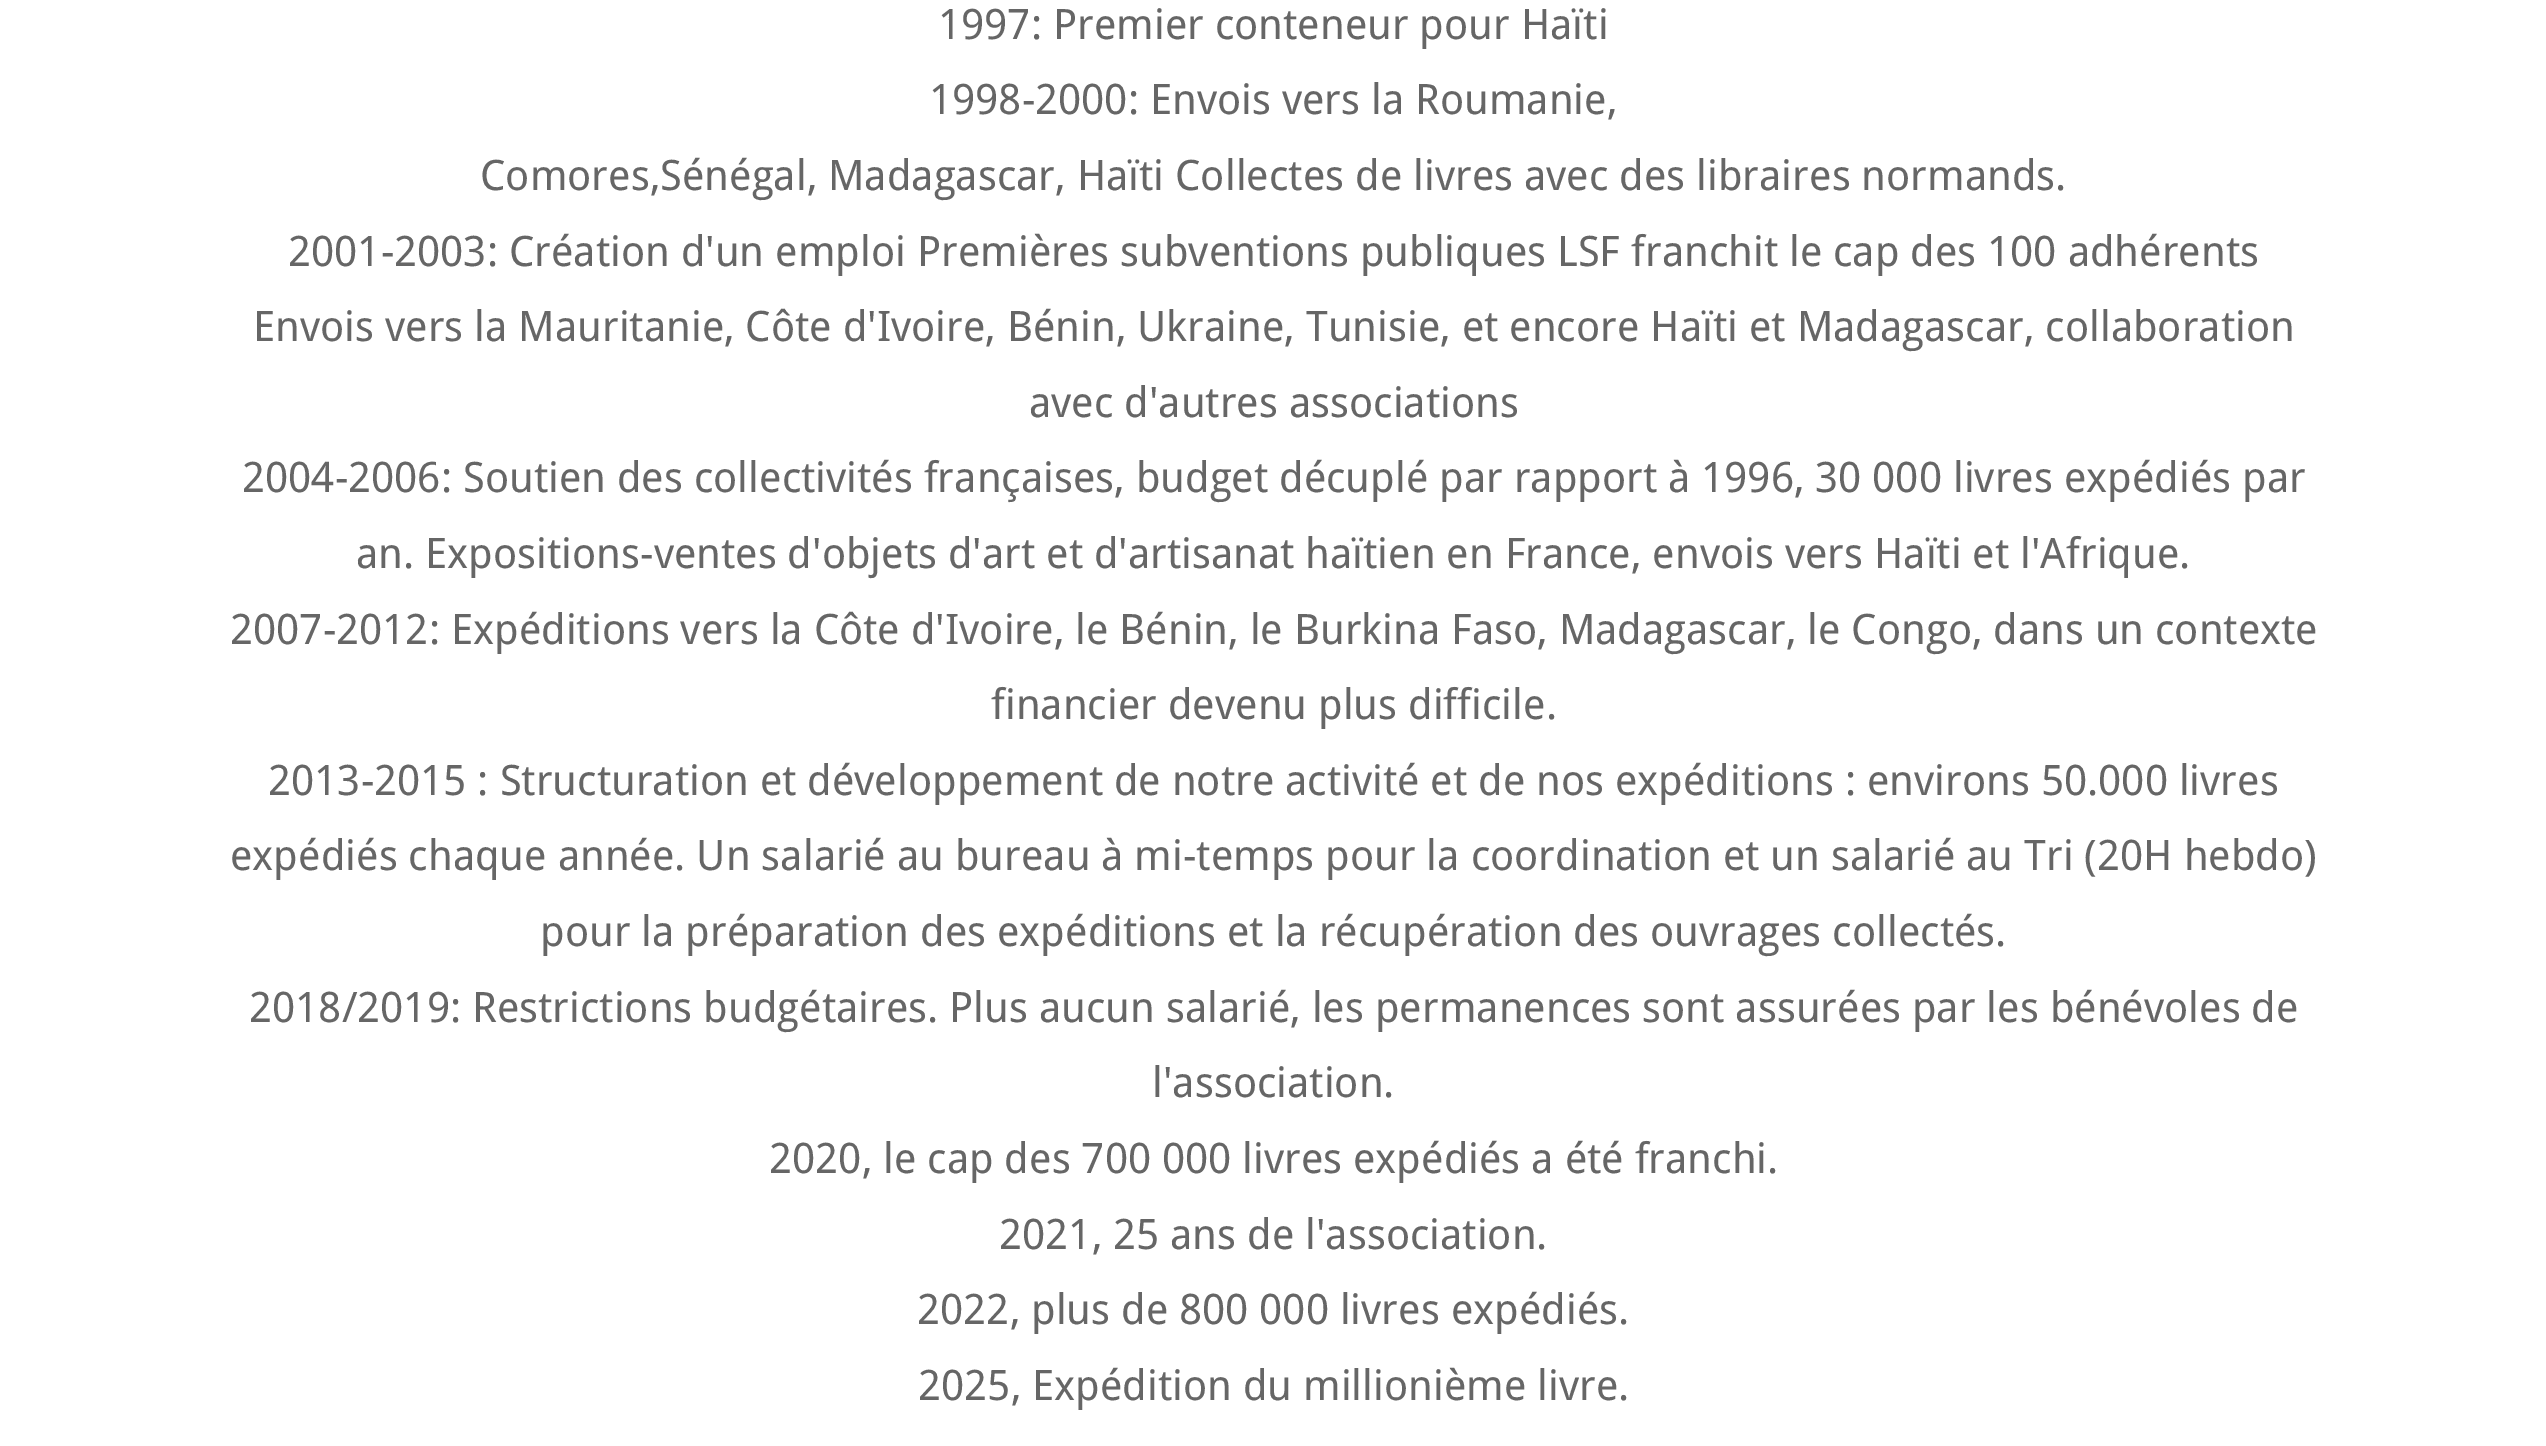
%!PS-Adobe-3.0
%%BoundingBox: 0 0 2546 1446
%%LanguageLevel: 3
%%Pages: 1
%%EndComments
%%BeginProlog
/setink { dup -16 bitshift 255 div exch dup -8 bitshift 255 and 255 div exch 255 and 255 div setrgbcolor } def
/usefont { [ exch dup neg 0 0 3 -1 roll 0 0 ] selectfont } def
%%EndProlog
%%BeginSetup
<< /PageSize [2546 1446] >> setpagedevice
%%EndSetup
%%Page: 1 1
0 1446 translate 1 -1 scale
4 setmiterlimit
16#FFFFFF setink
0 0 2546 1446 rectfill
/DroidSans-Regular 42 usefont
16#666666 setink
[
    [(1997: Premier conteneur pour Haïti) 938 39]
    [(1998-2000: Envois vers la Roumanie,) 929 114]
    [(Comores,Sénégal, Madagascar, Haïti Collectes de livres avec des libraires normands.) 480 190]
    [(2001-2003: Création d'un emploi Premières subventions publiques LSF franchit le cap des 100 adhérents) 288 266]
    [(Envois vers la Mauritanie, Côte d'Ivoire, Bénin, Ukraine, Tunisie, et encore Haïti et Madagascar, collaboration) 253 341]
    [(avec d'autres associations) 1029 417]
    [(2004-2006: Soutien des collectivités françaises, budget décuplé par rapport à 1996, 30 000 livres expédiés par) 242 492]
    [(an. Expositions-ventes d'objets d'art et d'artisanat haïtien en France, envois vers Haïti et l'Afrique.) 356 568]
    [(2007-2012: Expéditions vers la Côte d'Ivoire, le Bénin, le Burkina Faso, Madagascar, le Congo, dans un contexte) 230 644]
    [(financier devenu plus difficile.) 991 719]
    [(2013-2015 : Structuration et développement de notre activité et de nos expéditions : environs 50.000 livres) 268 795]
    [(expédiés chaque année. Un salarié au bureau à mi-temps pour la coordination et un salarié au Tri \(20H hebdo\)) 230 870]
    [(pour la préparation des expéditions et la récupération des ouvrages collectés.) 540 946]
    [(2018/2019: Restrictions budgétaires. Plus aucun salarié, les permanences sont assurées par les bénévoles de) 249 1022]
    [(l'association.) 1152 1097]
    [(2020, le cap des 700 000 livres expédiés a été franchi.) 769 1173]
    [(2021, 25 ans de l'association.) 999 1249]
    [(2022, plus de 800 000 livres expédiés.) 917 1324]
    [(2025, Expédition du millionième livre.) 918 1400]
] { aload pop moveto show } forall
showpage
%%EOF
